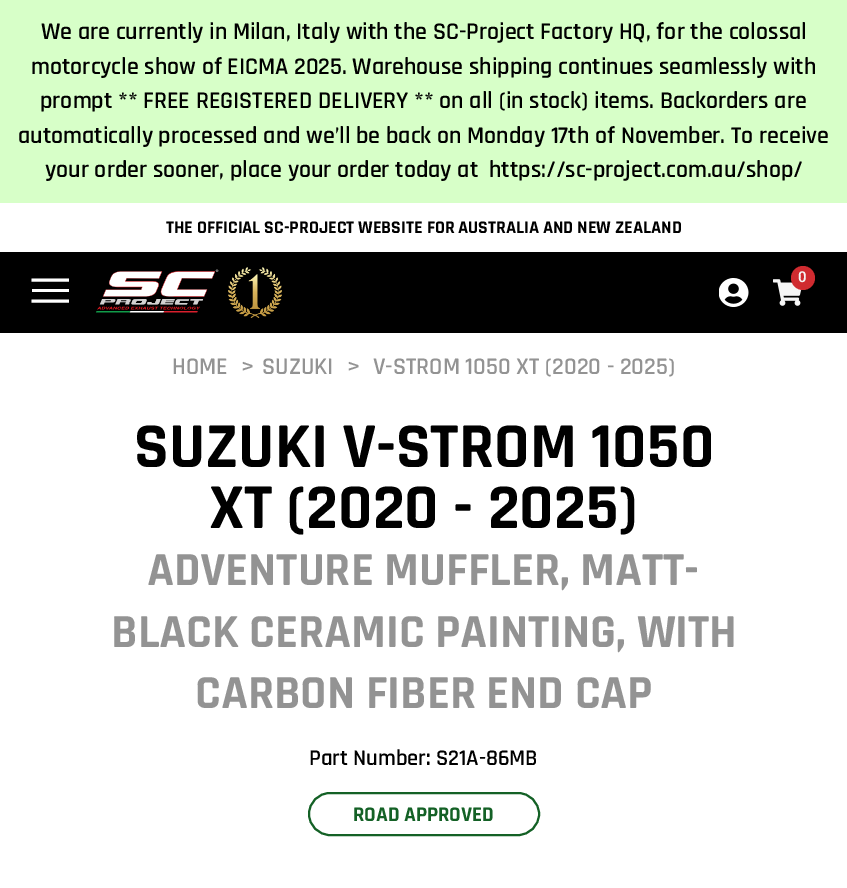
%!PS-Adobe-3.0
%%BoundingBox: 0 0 847 888
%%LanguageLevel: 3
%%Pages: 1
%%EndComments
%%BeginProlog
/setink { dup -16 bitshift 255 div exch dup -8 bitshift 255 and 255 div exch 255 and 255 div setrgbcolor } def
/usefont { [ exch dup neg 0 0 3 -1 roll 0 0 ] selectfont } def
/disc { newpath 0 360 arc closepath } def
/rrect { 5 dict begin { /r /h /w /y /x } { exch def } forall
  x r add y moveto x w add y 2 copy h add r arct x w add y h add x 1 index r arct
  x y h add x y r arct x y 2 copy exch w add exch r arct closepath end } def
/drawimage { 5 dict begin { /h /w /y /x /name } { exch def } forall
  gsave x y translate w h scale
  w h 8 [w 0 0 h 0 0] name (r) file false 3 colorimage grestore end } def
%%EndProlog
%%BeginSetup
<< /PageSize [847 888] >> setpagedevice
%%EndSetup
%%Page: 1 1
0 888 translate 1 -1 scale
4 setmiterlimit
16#FFFFFF setink
0 0 847 888 rectfill
16#D7FFC8 setink
0 0 847 203 rectfill
/Rajdhani-SemiBold 24 usefont
16#000000 setink
[
    [(We are currently in Milan, Italy with the SC-Project Factory HQ, for the colossal) 41 39]
    [(motorcycle show of EICMA 2025. Warehouse shipping continues seamlessly with) 31 74]
    [(prompt ** FREE REGISTERED DELIVERY ** on all \(in stock\) items. Backorders are) 40 108]
    [(automatically processed and we’ll be back on Monday 17th of November. To receive) 18 143]
    [(your order sooner, place your order today at) 45 177]
    [(https://sc-project.com.au/shop/) 489 177]
] { aload pop moveto show } forall
/Rajdhani-Bold 18 usefont
166 233 moveto (THE OFFICIAL SC-PROJECT WEBSITE FOR AUSTRALIA AND NEW ZEALAND) show
0 252 847 81 rectfill
16#FFFFFF setink
3 setlinewidth
69 280 moveto 31.5 280 lineto stroke
32 289 37 3 rectfill
69 301 moveto 31.5 301 lineto stroke
(img1.raw) 96 269 123 44 drawimage
(img2.raw) 228 267 54 51 drawimage
(img3.raw) 719 278 30 29 drawimage
(img4.raw) 773 279 29 27 drawimage
16#D02B30 setink
803 278 12 disc fill
/Roboto-SemiBold 15 usefont
16#F6F6F6 setink
798 282 moveto (0) show
/Rajdhani-SemiBold 24 usefont
16#939393 setink
[
    [(HOME) 172 374]
    [(>) 241 374]
    [(SUZUKI) 262 374]
    [(>) 347 374]
    [(V-STROM 1050 XT \(2020 - 2025\)) 373 374]
] { aload pop moveto show } forall
/Rajdhani-Bold 64.5 usefont
16#000000 setink
134 467 moveto (SUZUKI V-STROM 1050) show
209 528 moveto (XT \(2020 - 2025\)) show
/Rajdhani-Bold 48 usefont
16#939393 setink
[
    [(ADVENTURE MUFFLER, MATT-) 147 585]
    [(BLACK CERAMIC PAINTING, WITH) 111 647]
    [(CARBON FIBER END CAP) 195 708]
] { aload pop moveto show } forall
/Rajdhani-SemiBold 22.5 usefont
16#000000 setink
309 765 moveto (Part Number: S21A-86MB) show
16#146126 setink
2 setlinewidth
309 793 230 42 21 rrect stroke
/Rajdhani-Bold 21 usefont
353 821 moveto (ROAD APPROVED) show
showpage
%%EOF
